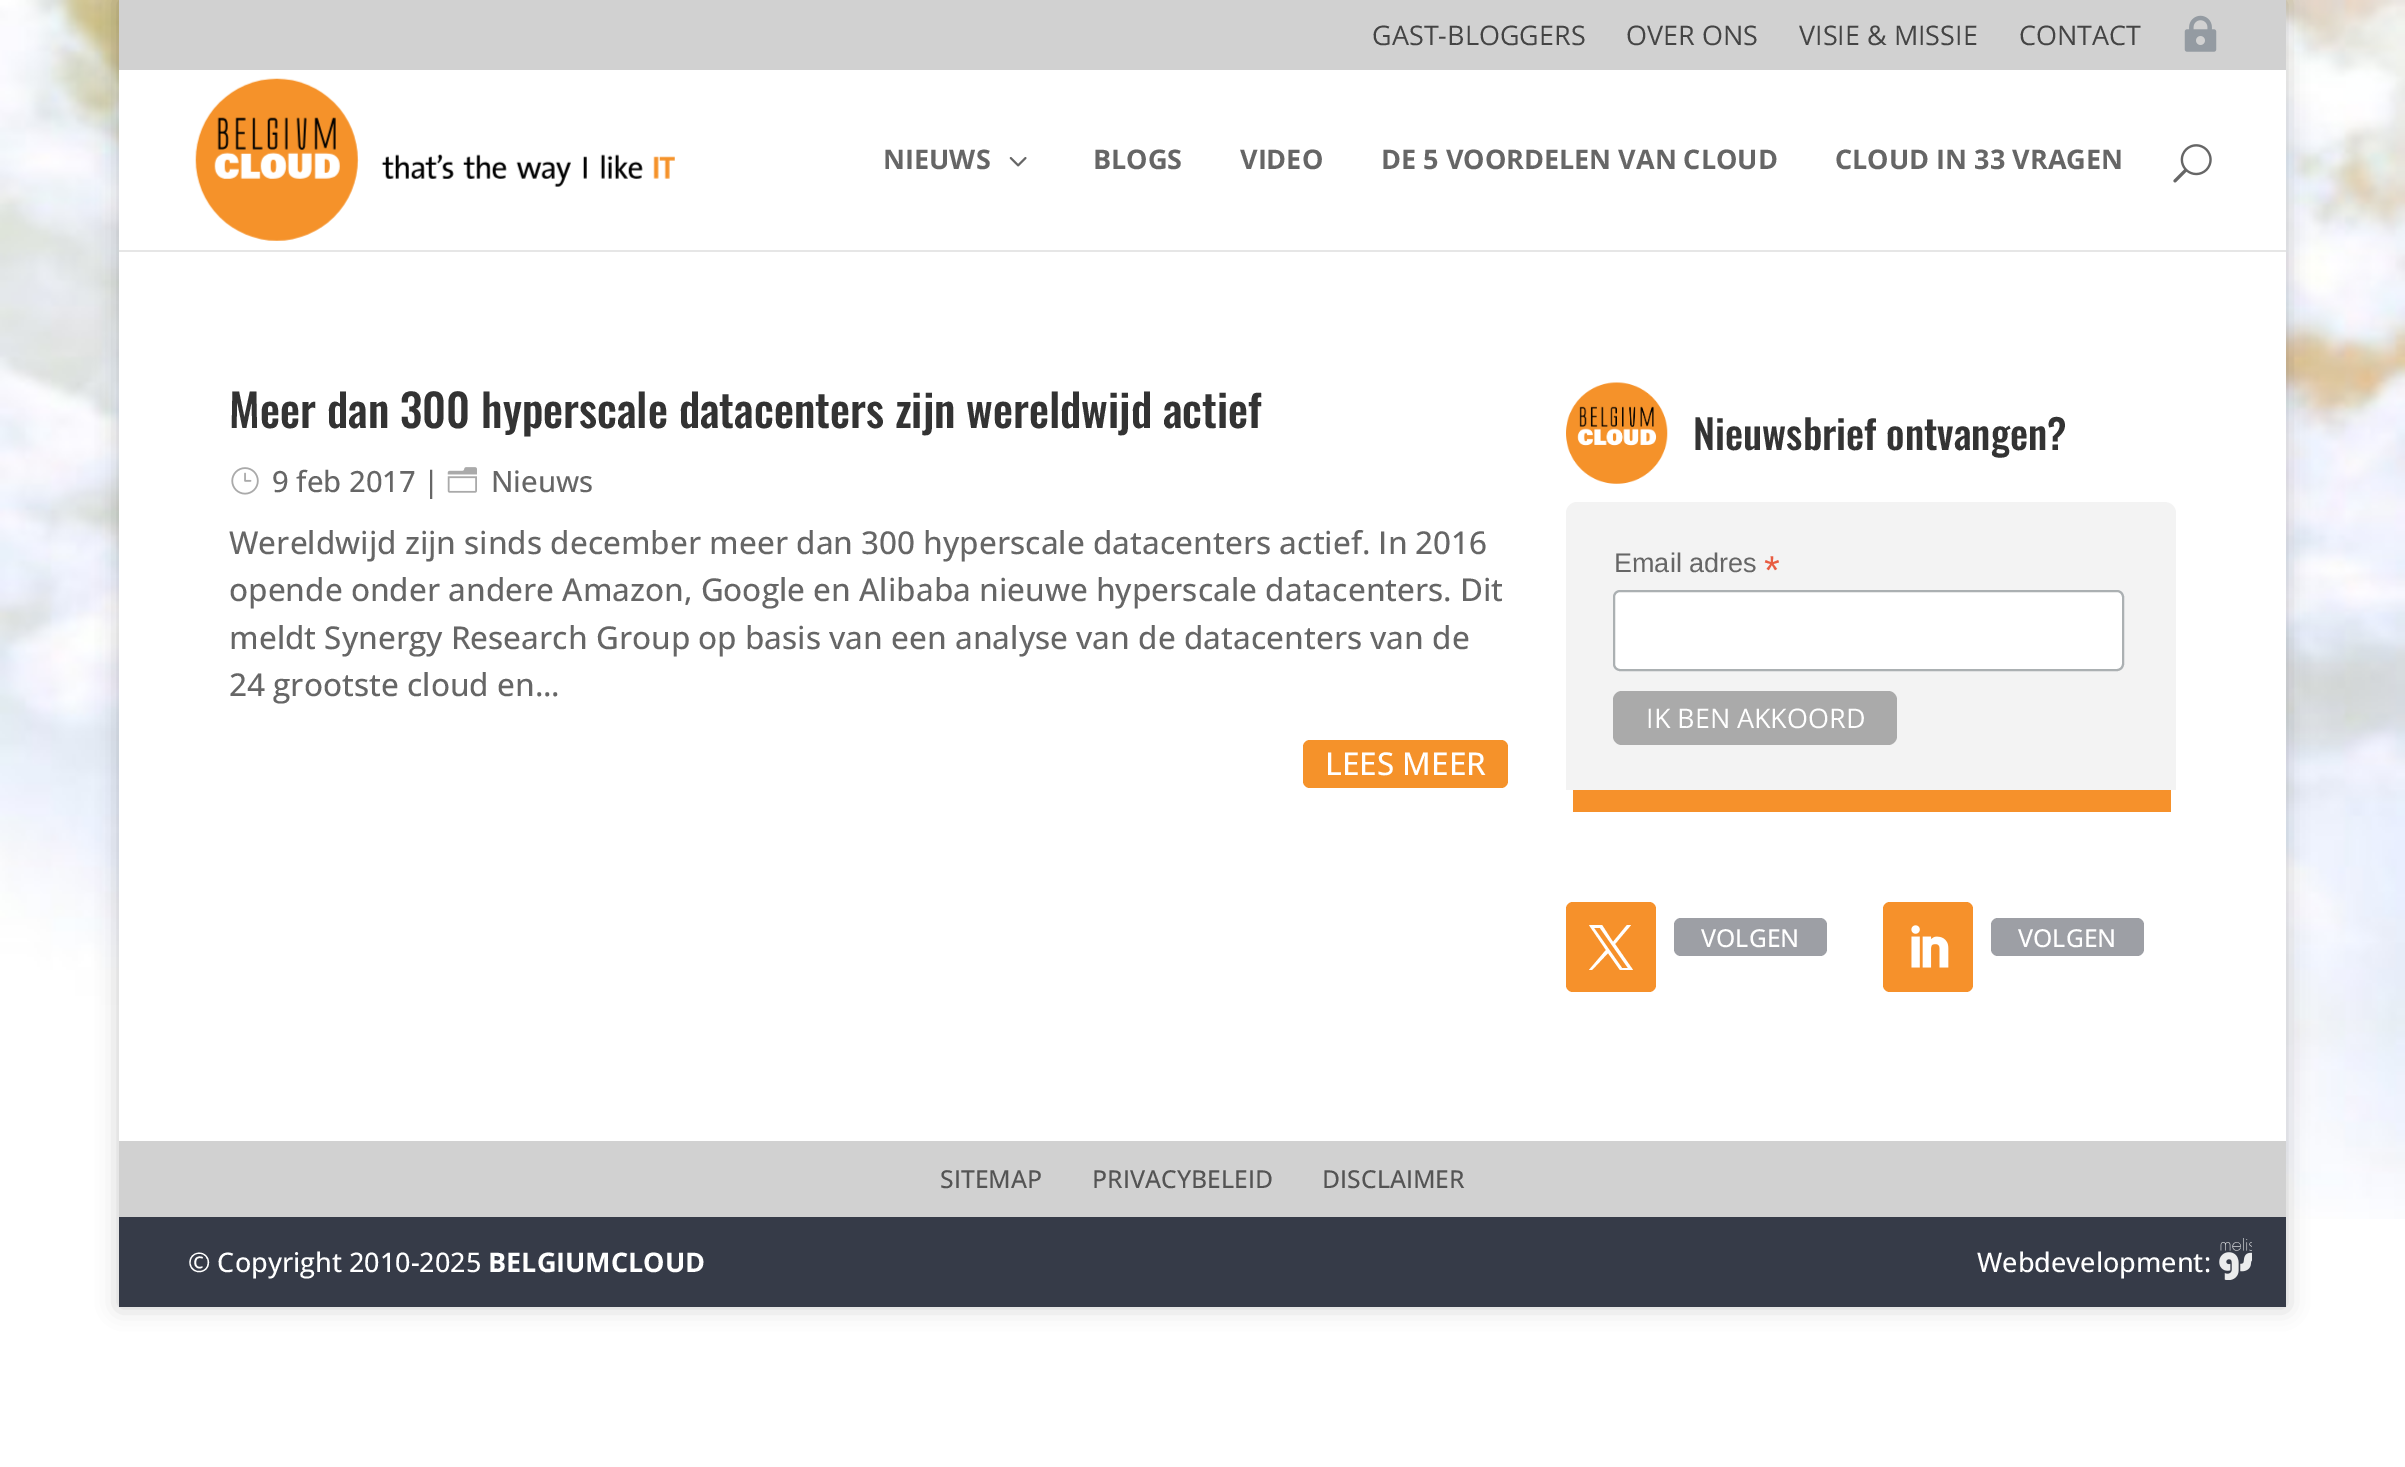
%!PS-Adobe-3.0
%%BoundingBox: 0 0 2405 1467
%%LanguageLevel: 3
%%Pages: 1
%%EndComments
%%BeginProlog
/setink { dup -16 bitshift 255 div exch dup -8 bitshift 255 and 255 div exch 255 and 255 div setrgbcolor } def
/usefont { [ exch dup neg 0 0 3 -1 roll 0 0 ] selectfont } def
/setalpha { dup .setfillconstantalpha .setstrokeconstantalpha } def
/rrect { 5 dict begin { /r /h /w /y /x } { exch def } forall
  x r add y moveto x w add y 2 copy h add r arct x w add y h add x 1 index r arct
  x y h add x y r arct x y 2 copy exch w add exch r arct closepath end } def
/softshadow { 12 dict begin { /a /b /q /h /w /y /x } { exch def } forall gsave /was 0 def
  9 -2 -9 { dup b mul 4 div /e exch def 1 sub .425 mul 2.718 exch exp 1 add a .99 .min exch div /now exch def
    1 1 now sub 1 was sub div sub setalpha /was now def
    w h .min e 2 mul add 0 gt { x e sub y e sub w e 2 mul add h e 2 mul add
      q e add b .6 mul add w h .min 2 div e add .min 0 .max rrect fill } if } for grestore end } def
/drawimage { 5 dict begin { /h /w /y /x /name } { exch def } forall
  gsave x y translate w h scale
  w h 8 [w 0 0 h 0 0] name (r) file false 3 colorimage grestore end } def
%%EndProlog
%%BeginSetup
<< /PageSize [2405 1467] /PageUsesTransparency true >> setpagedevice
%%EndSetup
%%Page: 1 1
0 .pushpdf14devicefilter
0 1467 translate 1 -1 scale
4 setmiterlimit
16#FFFFFF setink
0 0 2405 1467 rectfill
(img1.raw) 0 0 2405 1219 drawimage
16#000000 setink
119 0 2167 1307 0 11 0.2 softshadow
16#D1D1D1 setink
119 0 2167 70 rectfill
/OpenSans-Regular 27 usefont
16#444444 setink
[
    [(GAST-BLOGGERS) 1372 45]
    [(OVER ONS) 1626 45]
    [(VISIE & MISSIE) 1799 45]
    [(CONTACT) 2019 45]
] { aload pop moveto show } forall
(img2.raw) 2184 15 33 37 drawimage
16#E6E6E6 setink
119 72 moveto 119 252 lineto 2286 252 lineto 2286 250 lineto 119 250 lineto closepath fill
16#FFFFFF setink
119 70 2167 180 rectfill
(img3.raw) 195 78 480 163 drawimage
/OpenSans-Bold 27 usefont
16#666666 setink
883 169 moveto (NIEUWS) show
(img4.raw) 1009 157 18 10 drawimage
[
    [(BLOGS) 1093 169]
    [(VIDEO) 1240 169]
    [(DE 5 VOORDELEN VAN CLOUD) 1381 169]
    [(CLOUD IN 33 VRAGEN) 1835 169]
] { aload pop moveto show } forall
(img5.raw) 2173 144 39 39 drawimage
16#FFFFFF setink
119 252 2167 889 rectfill
/Oswald-Medium 45 usefont
16#333333 setink
229 428 moveto (Meer dan 300 hyperscale datacenters zijn wereldwijd actief) show
(img6.raw) 231 467 28 28 drawimage
/OpenSans-Medium 29.25 usefont
16#666666 setink
272 492 moveto (9 feb 2017 |) show
(img7.raw) 447 467 30 26 drawimage
491 492 moveto (Nieuws) show
/OpenSans-Medium 31.5 usefont
[
    [(Wereldwijd zijn sinds december meer dan 300 hyperscale datacenters actief. In 2016) 229 554]
    [(opende onder andere Amazon, Google en Alibaba nieuwe hyperscale datacenters. Dit) 229 601]
    [(meldt Synergy Research Group op basis van een analyse van de datacenters van de) 229 649]
    [(24 grootste cloud en...) 229 696]
] { aload pop moveto show } forall
16#F5922A setink
1303 740 205 48 7 rrect fill
16#FFFFFF setink
1325 775 moveto (LEES MEER) show
(img8.raw) 1566 382 102 102 drawimage
/Oswald-Medium 40.5 usefont
16#333333 setink
1693 450 moveto (Nieuwsbrief ontvangen?) show
16#F3F3F3 setink
1577 502 moveto 2164 502 lineto 2171 502 2176 507 2176 513 curveto 2176 790 lineto 1566 790 lineto 1566 513 lineto 1566 507 1571 502 1577 502 curveto closepath fill
16#F6912B setink
1573 790 598 22 rectfill
/LiberationSans-Regular 27 usefont
16#666666 setink
1614 572 moveto (Email adres) show
/LiberationSans-Regular 40.5 usefont
16#E85C41 setink
1764 584 moveto (*) show
16#FFFFFF setink
1614 591 509 79 6 rrect gsave fill grestore
16#ABB0B2 setink
2 setlinewidth
stroke
16#AAAAAA setink
1613 691 284 54 9 rrect fill
/OpenSans-Regular 27 usefont
16#FFFFFF setink
1646 728 moveto (IK BEN AKKOORD) show
16#F6912B setink
1566 902 90 90 7 rrect fill
16#FFFFFF setink
1589 925 moveto 1606 950 lineto 1589 970 lineto 1592 970 lineto 1608 953 lineto 1620 970 lineto 1633 970 lineto 1615 944 lineto 1631 925 lineto 1627 925 lineto 1613 942 lineto 1602 925 lineto closepath 1594 928 moveto 1600 928 lineto 1628 968 lineto 1622 968 lineto closepath fill
16#9D9FA5 setink
1674 918 153 38 7 rrect fill
/OpenSans-Medium 24.75 usefont
16#FFFFFF setink
1701 947 moveto (VOLGEN) show
16#F6912B setink
1883 902 90 90 7 rrect fill
(img9.raw) 1911 925 38 43 drawimage
16#9D9FA5 setink
1991 918 153 38 7 rrect fill
16#FFFFFF setink
2018 947 moveto (VOLGEN) show
16#D1D1D1 setink
119 1141 2167 76 rectfill
16#545454 setink
[
    [(SITEMAP) 940 1188]
    [(PRIVACYBELEID) 1092 1188]
    [(DISCLAIMER) 1322 1188]
] { aload pop moveto show } forall
16#363B48 setink
119 1217 2167 90 rectfill
/OpenSans-Medium 27 usefont
16#FFFFFF setink
188 1272 moveto (© Copyright 2010-2025) show
/OpenSans-Bold 27 usefont
488 1272 moveto (BELGIUMCLOUD) show
/OpenSans-Medium 27 usefont
1977 1272 moveto (Webdevelopment:) show
(img10.raw) 2219 1238 33 42 drawimage
.poppdf14devicefilter showpage
%%EOF
